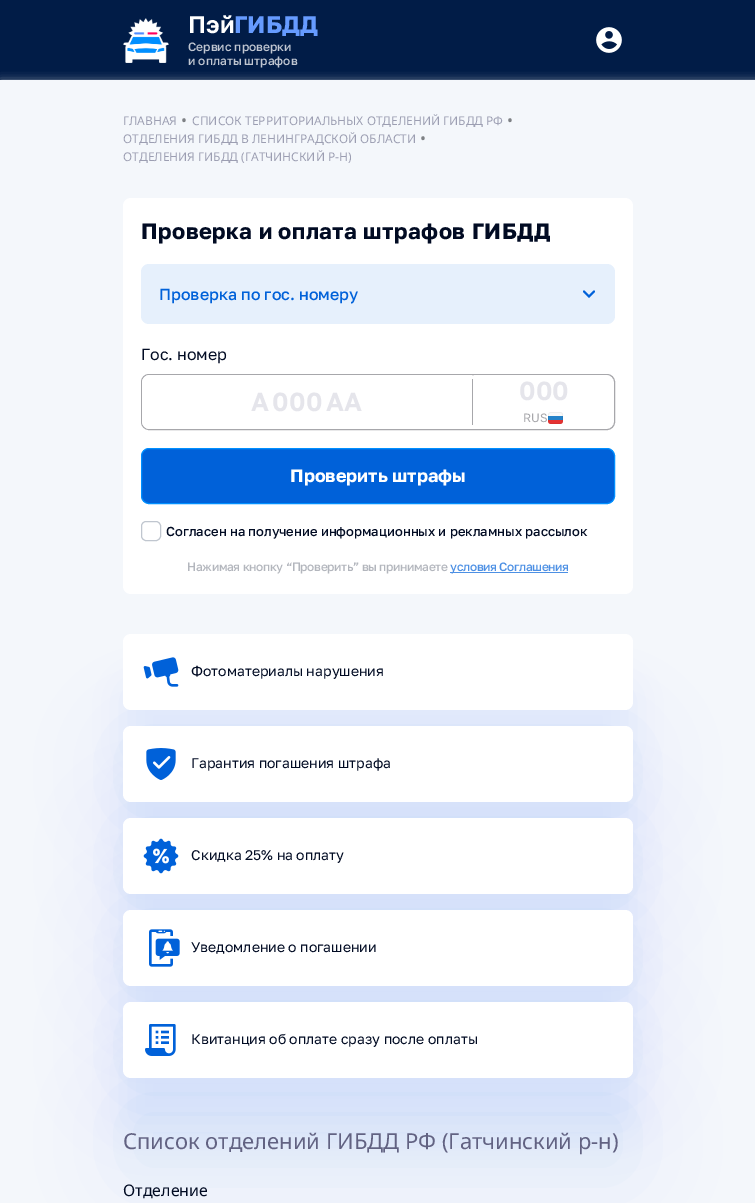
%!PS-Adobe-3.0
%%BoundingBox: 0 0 755 1203
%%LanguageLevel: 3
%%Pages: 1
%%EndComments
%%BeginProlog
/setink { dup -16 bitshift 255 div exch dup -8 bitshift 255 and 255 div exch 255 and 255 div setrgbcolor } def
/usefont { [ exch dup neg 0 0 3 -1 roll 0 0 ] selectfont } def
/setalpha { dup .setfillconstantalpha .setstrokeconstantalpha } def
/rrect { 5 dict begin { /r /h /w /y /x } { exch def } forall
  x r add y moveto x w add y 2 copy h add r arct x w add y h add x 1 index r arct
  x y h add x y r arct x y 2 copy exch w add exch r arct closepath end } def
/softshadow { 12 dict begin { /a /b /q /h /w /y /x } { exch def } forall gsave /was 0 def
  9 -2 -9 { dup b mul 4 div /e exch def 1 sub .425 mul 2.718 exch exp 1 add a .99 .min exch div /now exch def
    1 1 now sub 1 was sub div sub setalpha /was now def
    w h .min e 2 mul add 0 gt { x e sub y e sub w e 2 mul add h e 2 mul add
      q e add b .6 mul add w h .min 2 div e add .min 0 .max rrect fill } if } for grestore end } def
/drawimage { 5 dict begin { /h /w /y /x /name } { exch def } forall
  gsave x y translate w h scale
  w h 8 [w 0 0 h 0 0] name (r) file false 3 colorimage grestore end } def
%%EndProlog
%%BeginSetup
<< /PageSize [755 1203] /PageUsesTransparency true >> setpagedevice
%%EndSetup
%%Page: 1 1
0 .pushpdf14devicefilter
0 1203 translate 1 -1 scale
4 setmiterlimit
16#011C47 setink
0 0 755 1203 rectfill
(img1.raw) 123 18 46 45 drawimage
/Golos-SemiBold 24 usefont
16#FFFFFF setink
188 33 moveto (Пэй) show
/Golos-Bold 24 usefont
16#669BFF setink
234 33 moveto (ГИБДД) show
/Golos-Medium 12 usefont
16#C0C6D1 setink
188 51 moveto (Сервис проверки) show
16#E2E2E2 setink
1 83 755 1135 0 5 1 softshadow
16#C0C6D1 setink
188 65 moveto (и оплаты штрафов) show
(img2.raw) 596 27 26 26 drawimage
16#F4F7FB setink
0 80 755 1123 rectfill
/NotoSans-Regular 12 usefont
16#9C9EB2 setink
123 125 moveto (ГЛАВНАЯ) show
/NotoSans-Regular 16 usefont
16#7E8185 setink
181 126 moveto (•) show
/NotoSans-Regular 12 usefont
16#9C9EB2 setink
192 125 moveto (СПИСОК ТЕРРИТОРИАЛЬНЫХ ОТДЕЛЕНИЙ ГИБДД РФ) show
/NotoSans-Regular 16 usefont
16#7E8185 setink
507 126 moveto (•) show
/NotoSans-Regular 12 usefont
16#9C9EB2 setink
123 143 moveto (ОТДЕЛЕНИЯ ГИБДД В ЛЕНИНГРАДСКОЙ ОБЛАСТИ) show
/NotoSans-Regular 16 usefont
16#7E8185 setink
420 144 moveto (•) show
/NotoSans-Regular 12 usefont
16#9C9EB2 setink
123 161 moveto (ОТДЕЛЕНИЯ ГИБДД \(ГАТЧИНСКИЙ Р-Н\)) show
16#FFFFFF setink
123 198 510 396 8 rrect fill
/Golos-Bold 22 usefont
16#010B23 setink
141 239 moveto 0.45 0 (Проверка и оплата штрафов ГИБДД) ashow
16#E6F0FC setink
141 264 474 60 8 rrect fill
/Golos-Medium 16 usefont
16#0061D9 setink
159 300 moveto (Проверка по гос. номеру) show
2 setlinewidth
1 setlinecap
584 291.5 moveto 589 296.5 lineto 594 291.5 lineto stroke
/Golos-Regular 16 usefont
16#010B23 setink
141 360 moveto (Гос. номер) show
16#A7A7AB setink
1 setlinewidth
0 setlinecap
141.5 374.5 473 55 7.5 rrect stroke
16#FFFFFF setink
150 375 moveto 472 375 lineto 472 429 lineto 150 429 lineto 145.5 429 142 425.5 142 421 curveto 142 383 lineto 142 378.5 145.5 375 150 375 curveto closepath fill
/Golos-SemiBold 26 usefont
16#E5E5EB setink
251 411 moveto -3 0 32 (А 000 АА) widthshow
16#A7A7AB setink
472 379 1 46 rectfill
16#FFFFFF setink
474 375 moveto 605 375 lineto 609.5 375 613 378.5 613 383 curveto 613 407 lineto 474 407 lineto closepath fill
16#E5E5EB setink
519 400 moveto (000) show
/Golos-Regular 12 usefont
16#A7A7AB setink
523 422 moveto (RUS) show
(img3.raw) 548 412 15 12 drawimage
16#0061D9 setink
141.5 448.5 473 55 7.5 rrect gsave fill grestore
16#008FFF setink
stroke
/Golos-Bold 18 usefont
16#FFFFFF setink
290 482 moveto (Проверить штрафы) show
16#C0C6CF setink
141.5 521.5 19 19 4.5 rrect stroke
/Golos-Medium 13 usefont
16#010B23 setink
166 536 moveto (Согласен на получение информационных и рекламных рассылок) show
/Golos-Medium 12 usefont
16#B3B6BD setink
187 571 moveto -0.35 0 (Нажимая кнопку “Проверить” вы принимаете) ashow
16#4D90E4 setink
450 572 118 1 rectfill
450 571 moveto -0.35 0 (условия Соглашения) ashow
16#0061D9 setink
123 734 510 76 8 40 0.07 softshadow
123 685 510 76 8 17.5 0.05 softshadow
16#FFFFFF setink
123 634 510 76 8 rrect fill
(img4.raw) 143 657 36 30 drawimage
/Golos-Regular 14 usefont
16#010B23 setink
191 676 moveto (Фотоматериалы нарушения) show
16#0061D9 setink
123 826 510 76 8 40 0.07 softshadow
123 777 510 76 8 17.5 0.05 softshadow
16#FFFFFF setink
123 726 510 76 8 rrect fill
(img5.raw) 146 748 30 32 drawimage
16#010B23 setink
191 768 moveto (Гарантия погашения штрафа) show
16#0061D9 setink
123 918 510 76 8 40 0.07 softshadow
123 869 510 76 8 17.5 0.05 softshadow
16#FFFFFF setink
123 818 510 76 8 rrect fill
(img6.raw) 143 838 36 36 drawimage
16#010B23 setink
191 860 moveto (Скидка 25% на оплату) show
16#0061D9 setink
123 1010 510 76 8 40 0.07 softshadow
123 961 510 76 8 17.5 0.05 softshadow
16#FFFFFF setink
123 910 510 76 8 rrect fill
(img7.raw) 149 929 31 38 drawimage
16#010B23 setink
191 952 moveto (Уведомление о погашении) show
16#0061D9 setink
123 1102 510 76 8 40 0.07 softshadow
123 1053 510 76 8 17.5 0.05 softshadow
16#FFFFFF setink
123 1002 510 76 8 rrect fill
(img8.raw) 145 1024 31 32 drawimage
16#010B23 setink
191 1044 moveto (Квитанция об оплате сразу после оплаты) show
/NotoSans-Regular 22 usefont
16#626282 setink
123 1149 moveto (Список отделений ГИБДД РФ \(Гатчинский р-н\)) show
/NotoSans-Regular 16 usefont
16#010B23 setink
123 1196 moveto (Отделение) show
.poppdf14devicefilter showpage
%%EOF
